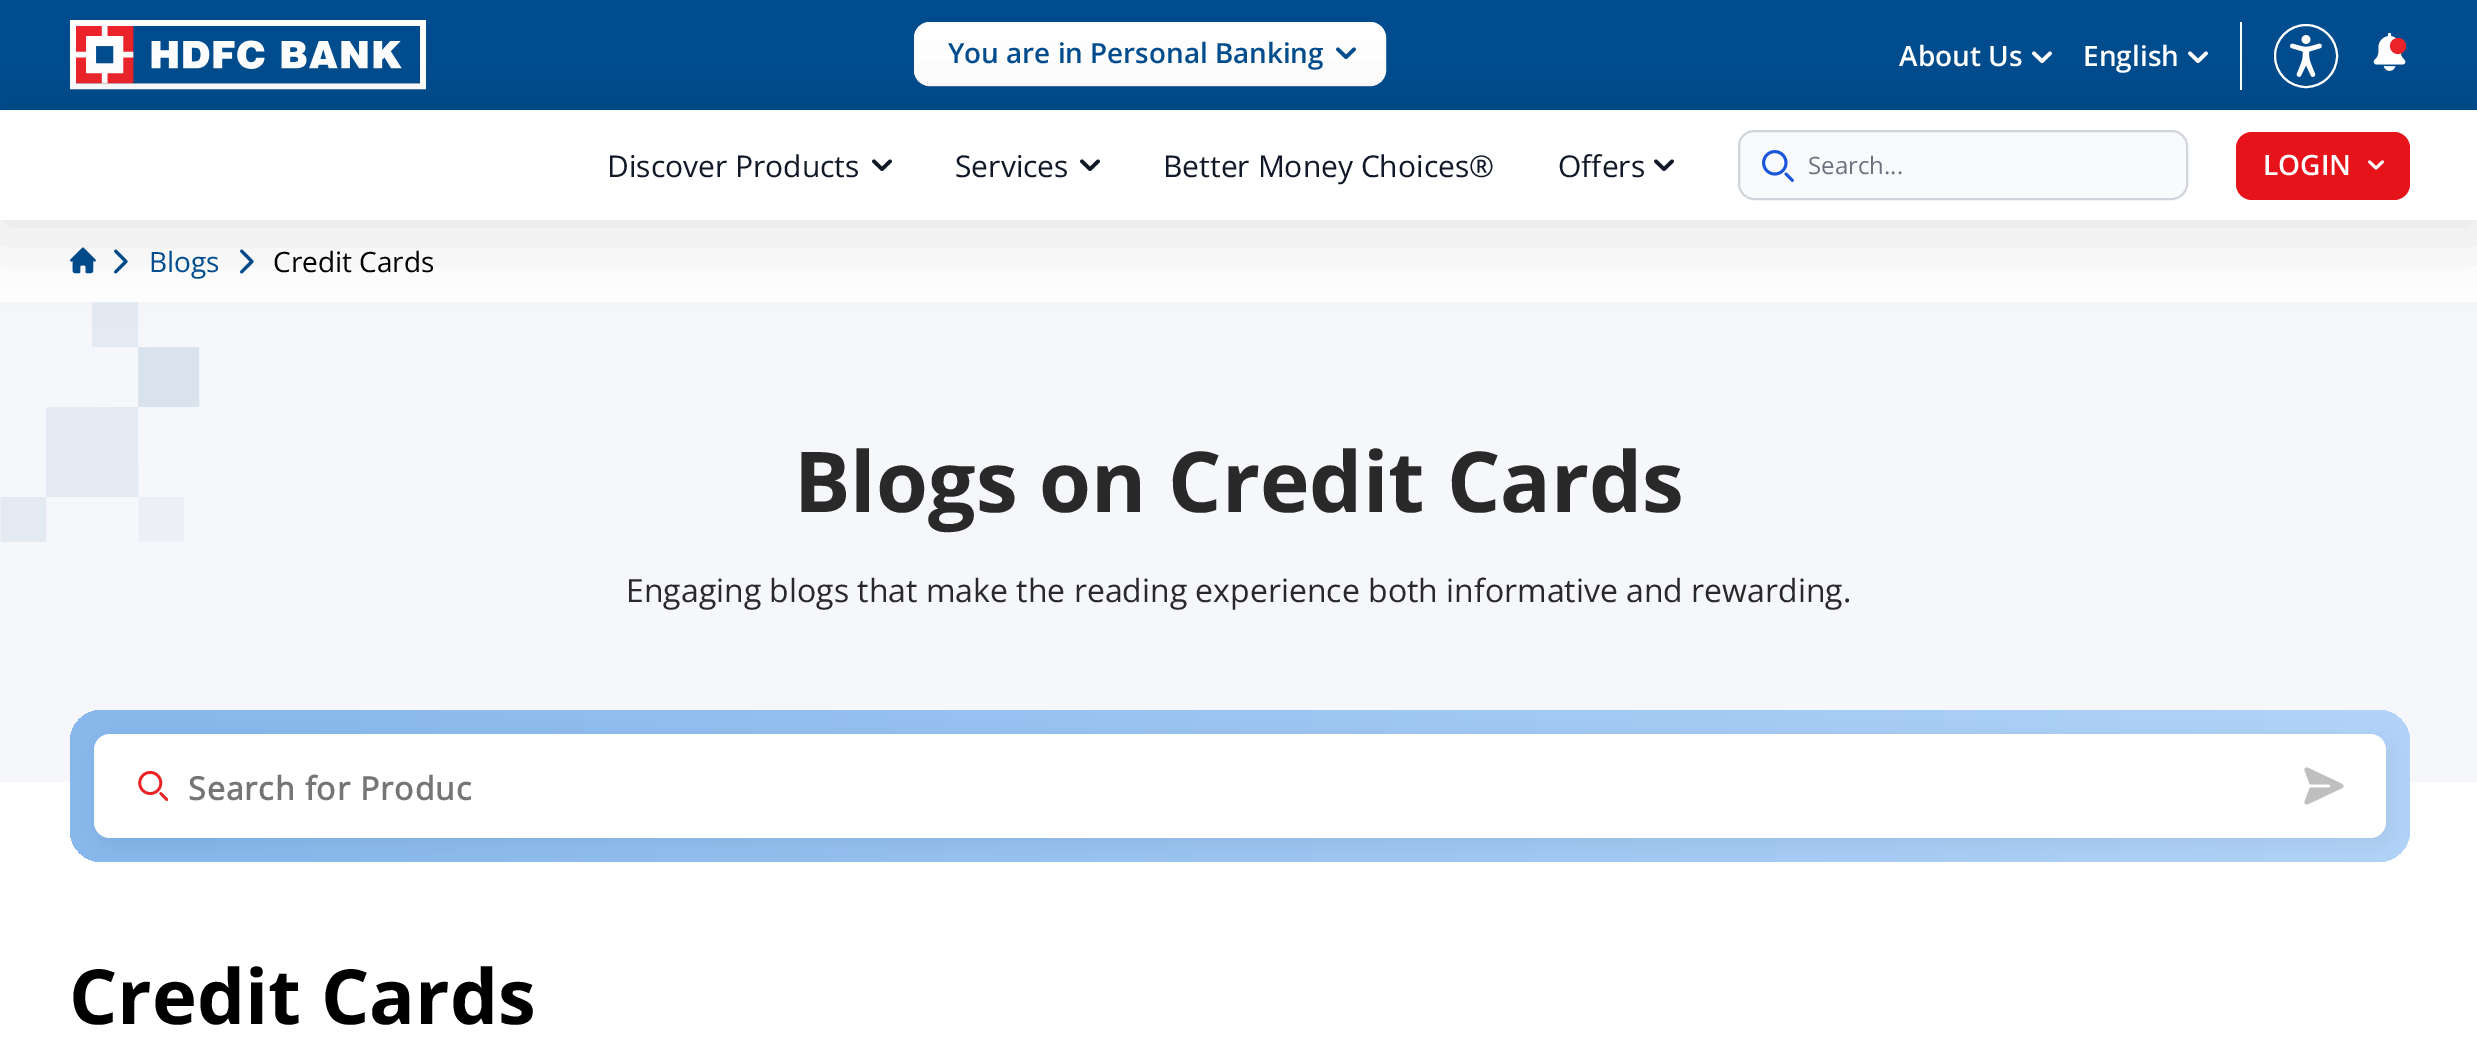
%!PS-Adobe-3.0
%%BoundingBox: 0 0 2477 1055
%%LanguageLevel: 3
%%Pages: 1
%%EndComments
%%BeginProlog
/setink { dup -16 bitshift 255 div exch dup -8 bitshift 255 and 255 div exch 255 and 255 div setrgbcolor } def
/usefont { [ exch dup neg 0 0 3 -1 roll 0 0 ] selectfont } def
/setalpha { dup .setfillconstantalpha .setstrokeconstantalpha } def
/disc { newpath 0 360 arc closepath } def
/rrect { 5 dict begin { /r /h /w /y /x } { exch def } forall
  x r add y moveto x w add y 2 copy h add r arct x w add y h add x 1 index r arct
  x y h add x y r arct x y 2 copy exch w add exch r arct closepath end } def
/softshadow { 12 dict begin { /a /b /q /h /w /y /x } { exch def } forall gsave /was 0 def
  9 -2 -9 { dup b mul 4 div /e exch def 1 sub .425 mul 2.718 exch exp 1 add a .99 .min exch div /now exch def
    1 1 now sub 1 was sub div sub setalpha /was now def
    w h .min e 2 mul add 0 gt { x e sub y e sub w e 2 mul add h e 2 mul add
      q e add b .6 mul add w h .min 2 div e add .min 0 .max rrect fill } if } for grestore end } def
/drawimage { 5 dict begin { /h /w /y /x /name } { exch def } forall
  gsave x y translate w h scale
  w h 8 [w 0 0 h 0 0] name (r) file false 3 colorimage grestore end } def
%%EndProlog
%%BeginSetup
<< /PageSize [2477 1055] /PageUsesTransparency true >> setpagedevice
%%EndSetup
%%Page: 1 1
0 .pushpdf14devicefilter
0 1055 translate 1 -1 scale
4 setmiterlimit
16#FFFFFF setink
0 0 2477 1055 rectfill
16#004C8F setink
0 0 2477 110 rectfill
(img1.raw) 70 20 356 70 drawimage
16#FFFFFF setink
914 22 472 64 16 rrect fill
0.8 setalpha
2 setlinewidth
915 23 470 62 15 rrect stroke
/OpenSans-SemiBold 27.8 usefont
1 setalpha
16#004C8F setink
948 63 moveto (You are in Personal Banking) show
(img2.raw) 1336 47 20 12 drawimage
(img9.raw) 70 247 26 27 drawimage
(img10.raw) 114 249 14 25 drawimage
(img10.raw) 240 249 14 25 drawimage
16#F6F7FB setink
0 302 2477 480 rectfill
(img11.raw) 0 302 200 240 drawimage
gsave
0 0 moveto 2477 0 lineto 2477 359 lineto 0 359 lineto closepath 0 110 moveto 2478 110 lineto 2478 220 lineto 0 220 lineto closepath eoclip newpath
16#000000 setink
-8 112 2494 126 0 40 0.1 softshadow
grestore
/OpenSans-Regular 30 usefont
16#111928 setink
607 177 moveto (Discover Products) show
(img3.raw) 872 159 20 12 drawimage
955 177 moveto (Services) show
(img3.raw) 1080 159 20 12 drawimage
1163 177 moveto (Better Money Choices®) show
1558 177 moveto (Offers) show
(img3.raw) 1654 159 20 12 drawimage
16#F9FAFB setink
1739 131 448 68 15 rrect gsave fill grestore
16#D1D5DB setink
stroke
(img4.raw) 1762 150 32 32 drawimage
/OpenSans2-Regular 24 usefont
16#6B7280 setink
1808 174 moveto (Search...) show
16#E7131A setink
2236 132 174 68 16 rrect fill
/OpenSans-SemiBold 28 usefont
16#FFFFFF setink
2263 175 moveto (LOGIN) show
(img5.raw) 2368 160 16 10 drawimage
1899 66 moveto (About Us) show
(img6.raw) 2032 51 20 12 drawimage
2083 66 moveto (English) show
(img6.raw) 2188 51 20 12 drawimage
2240 22 2 68 rectfill
2306 56 31 disc stroke
(img7.raw) 2290 35 32 42 drawimage
(img8.raw) 2373 32 33 39 drawimage
16#ED232A setink
2398 46 8 disc fill
/OpenSans-Regular 28 usefont
16#004C8F setink
149 272 moveto (Blogs) show
16#000000 setink
273 272 moveto (Credit Cards) show
/OpenSans-Bold 84 usefont
16#292929 setink
794 512 moveto (Blogs on Credit Cards) show
/OpenSans-Regular 32 usefont
626 602 moveto (Engaging blogs that make the reading experience both informative and rewarding.) show
gsave 70 710 2340 152 32 rrect clip newpath
<< /ShadingType 2 /ColorSpace /DeviceRGB /Coords [69 760 2411 812] /Extend [true true] /Function << /FunctionType 3 /Domain [0 1] /Functions [<< /FunctionType 2 /Domain [0 1] /C0 [0.529 0.718 0.922] /C1 [0.529 0.718 0.922] /N 1 >> << /FunctionType 2 /Domain [0 1] /C0 [0.529 0.718 0.922] /C1 [0.698 0.831 0.973] /N 1 >>] /Bounds [0.03] /Encode [0 1 0 1] >> >> shfill grestore
16#000000 setink
100 740 2292 104 16 11 0.05 softshadow
16#FFFFFF setink
94 734 2292 104 16 rrect fill
(img12.raw) 138 771 30 30 drawimage
/OpenSans2-Bold 32 usefont
16#757575 setink
188 800 moveto 1 0 (Search for Produc) ashow
(img13.raw) 2304 767 40 38 drawimage
/OpenSans-Bold 76 usefont
16#000000 setink
69 1024 moveto (Credit Cards) show
.poppdf14devicefilter showpage
%%EOF
